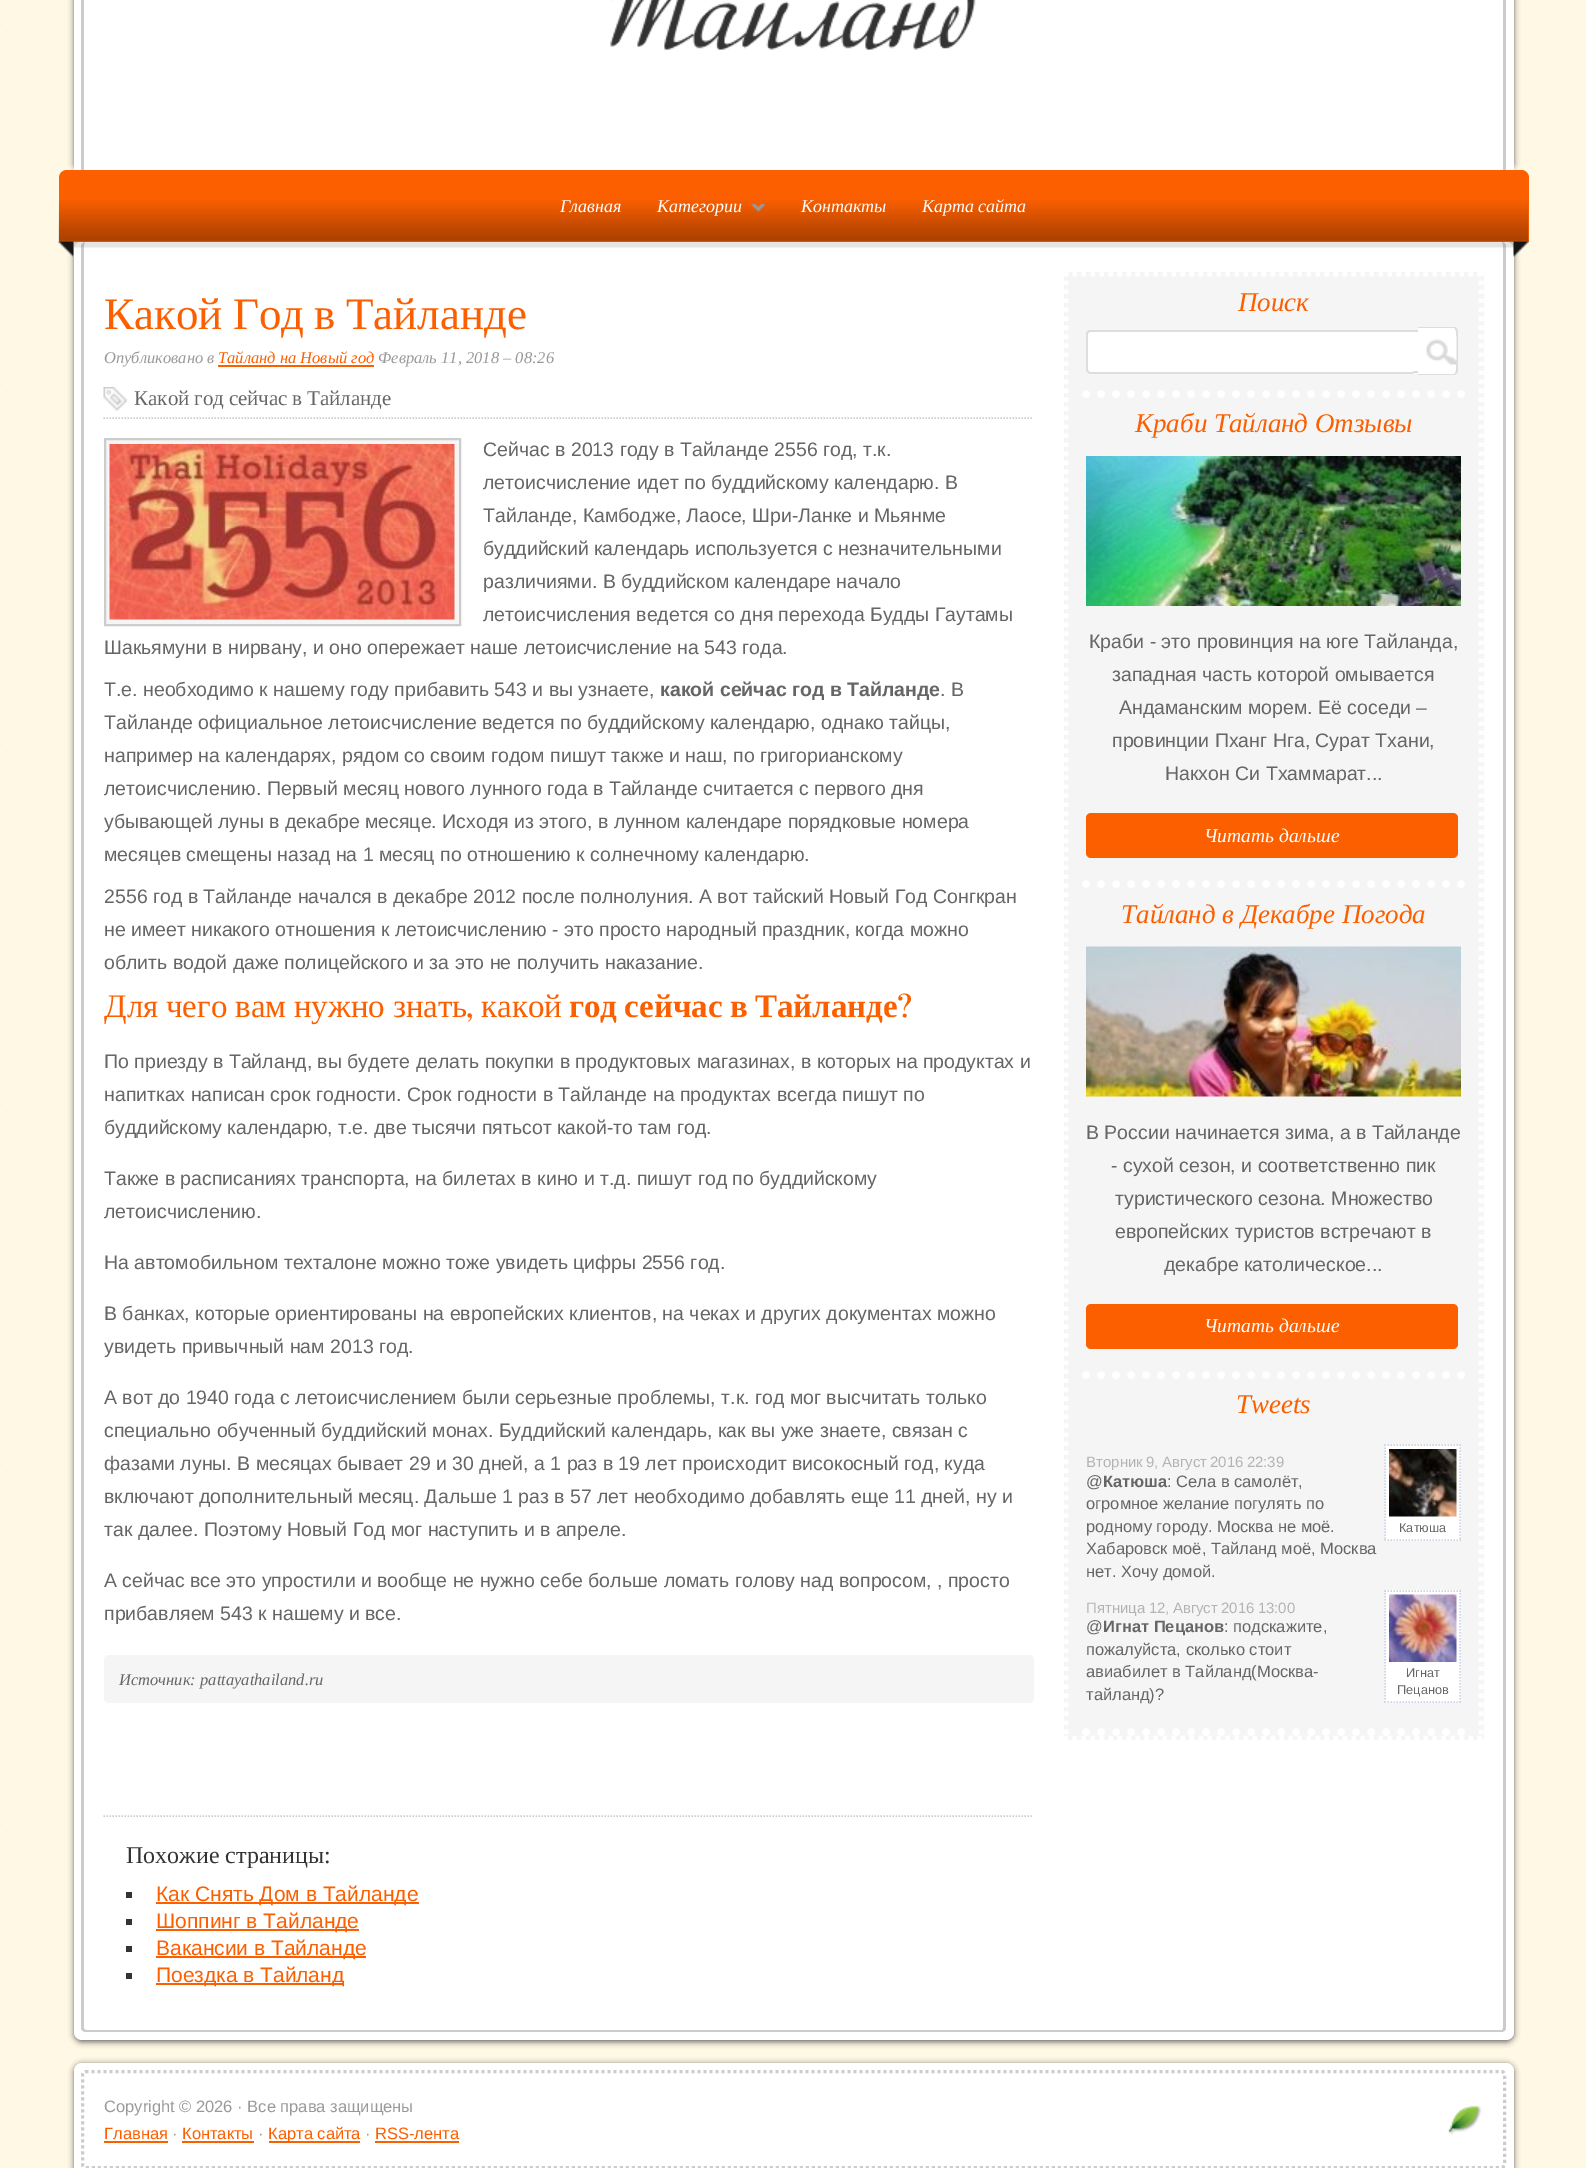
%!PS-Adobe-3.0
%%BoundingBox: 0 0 1586 2168
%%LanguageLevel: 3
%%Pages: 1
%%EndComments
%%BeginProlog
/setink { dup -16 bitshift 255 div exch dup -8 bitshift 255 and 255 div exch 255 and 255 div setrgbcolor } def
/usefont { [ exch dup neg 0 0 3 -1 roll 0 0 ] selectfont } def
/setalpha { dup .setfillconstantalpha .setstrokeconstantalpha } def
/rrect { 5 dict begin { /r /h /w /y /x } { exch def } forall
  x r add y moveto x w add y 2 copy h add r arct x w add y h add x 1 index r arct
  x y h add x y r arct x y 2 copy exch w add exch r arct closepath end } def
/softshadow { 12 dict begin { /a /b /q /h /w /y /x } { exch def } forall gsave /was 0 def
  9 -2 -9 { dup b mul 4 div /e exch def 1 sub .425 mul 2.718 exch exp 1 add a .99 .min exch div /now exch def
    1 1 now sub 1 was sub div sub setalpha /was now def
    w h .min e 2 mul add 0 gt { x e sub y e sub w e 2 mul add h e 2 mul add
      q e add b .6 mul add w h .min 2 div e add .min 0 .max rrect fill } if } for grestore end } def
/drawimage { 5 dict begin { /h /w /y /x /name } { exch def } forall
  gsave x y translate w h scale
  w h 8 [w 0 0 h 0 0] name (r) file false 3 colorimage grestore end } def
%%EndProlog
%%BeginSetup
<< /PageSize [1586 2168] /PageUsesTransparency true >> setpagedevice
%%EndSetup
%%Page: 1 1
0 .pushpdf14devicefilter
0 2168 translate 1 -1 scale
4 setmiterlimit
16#FFFFFF setink
0 0 1586 2168 rectfill
(img1.raw) 0 0 1586 2168 drawimage
16#666666 setink
74 -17 1440 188 8 3 1 softshadow
16#FFFFFF setink
74 0 1440 170 rectfill
16#CCCCCC setink
86 -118 moveto 1502 -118 lineto 1504 -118 1506 -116 1506 -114 curveto 1506 170 lineto 81 170 lineto 81 -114 lineto 81 -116 83 -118 86 -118 curveto closepath 86 -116 moveto 1502 -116 lineto 1502 -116 1503 -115 1503 -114 curveto 1503 170 lineto 84 170 lineto 84 -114 lineto 84 -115 85 -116 86 -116 curveto closepath eofill
(img2.raw) 610 0 366 50 drawimage
16#666666 setink
74 243 1440 1799 8 3 1 softshadow
16#FB5F00 setink
67 170 moveto 1521 170 lineto 1525.5 170 1529 173.5 1529 178 curveto 1529 242 lineto 59 242 lineto 59 178 lineto 59 173.5 62.5 170 67 170 curveto closepath fill
(img3.raw) 58 200 1471 42 drawimage
/LiberationSerif-Italic 18 usefont
16#FFFFFF setink
560 212 moveto (Главная) show
657 212 moveto (Категории) show
(img4.raw) 751 203 14 9 drawimage
801 212 moveto (Контакты) show
922 212 moveto (Карта сайта) show
74 242 1440 1798 8 rrect fill
16#CCCCCC setink
86 242 moveto 1502 242 lineto 1504 242 1506 244 1506 246 curveto 1506 2028 lineto 1506 2030 1504 2032 1502 2032 curveto 86 2032 lineto 83 2032 81 2030 81 2028 curveto 81 246 lineto 81 244 83 242 86 242 curveto closepath 86 242 moveto 1502 242 lineto 1502 242 1503 244 1503 246 curveto 1503 2028 lineto 1503 2029 1502 2030 1502 2030 curveto 86 2030 lineto 85 2030 84 2029 84 2028 curveto 84 246 lineto 84 244 85 242 86 242 curveto closepath eofill
(img5.raw) 58 241 1471 16 drawimage
/LiberationSerif-Regular 45 usefont
16#FB5F00 setink
104 329 moveto -1 0 32 (Какой Год в Тайланде) widthshow
/LiberationSerif-Italic 16.5 usefont
16#999999 setink
104 363 moveto (Опубликовано в) show
16#FB5F00 setink
218 363 moveto (Тайланд на Новый год) show
218 365 156 2 rectfill
16#999999 setink
378 363 moveto (Февраль 11, 2018 – 08:26) show
(img6.raw) 103 387 25 24 drawimage
16#CCCCCC setink
1.5 setlinewidth
[1.5 1.5] 0 setdash
103.5 418 moveto 1033.5 418 lineto stroke
/LiberationSerif-Regular 21 usefont
16#666666 setink
134 405 moveto -0.5 0 32 (Какой год сейчас в Тайланде) widthshow
16#F5F5F5 setink
105 439 moveto 460 439 lineto 460 625 lineto 105 625 lineto closepath gsave fill grestore
16#CCCCCC setink
2 setlinewidth
[] 0 setdash
stroke
(img7.raw) 109 444 346 176 drawimage
/LiberationSans-Regular 19.5 usefont
16#666666 setink
[
    [(Сейчас в 2013 году в Тайланде 2556 год, т.к.) 483 456]
    [(летоисчисление идет по буддийскому календарю. В) 483 489]
    [(Тайланде, Камбодже, Лаосе, Шри-Ланке и Мьянме) 483 522]
    [(буддийский календарь используется с незначительными) 483 555]
    [(различиями. В буддийском календаре начало) 483 588]
    [(летоисчисления ведется со дня перехода Будды Гаутамы) 483 621]
    [(Шакьямуни в нирвану, и оно опережает наше летоисчисление на 543 года.) 104 654]
    [(Т.е. необходимо к нашему году прибавить 543 и вы узнаете,) 104 696]
] { aload pop moveto show } forall
/LiberationSans-Bold 19.5 usefont
660 696 moveto (какой сейчас год в Тайланде) show
/LiberationSans-Regular 19.5 usefont
[
    [(. В) 940 696]
    [(Тайланде официальное летоисчисление ведется по буддийскому календарю, однако тайцы,) 104 729]
    [(например на календарях, рядом со своим годом пишут также и наш, по григорианскому) 104 762]
    [(летоисчислению. Первый месяц нового лунного года в Тайланде считается с первого дня) 104 795]
    [(убывающей луны в декабре месяце. Исходя из этого, в лунном календаре порядковые номера) 104 828]
    [(месяцев смещены назад на 1 месяц по отношению к солнечному календарю.) 104 861]
    [(2556 год в Тайланде начался в декабре 2012 после полнолуния. А вот тайский Новый Год Сонгкран) 104 903]
    [(не имеет никакого отношения к летоисчислению - это просто народный праздник, когда можно) 104 936]
    [(облить водой даже полицейского и за это не получить наказание.) 104 969]
] { aload pop moveto show } forall
/LiberationSerif-Regular 33 usefont
16#FB5F00 setink
104 1017 moveto -0.5 0 32 (Для чего вам нужно знать) widthshow
/Vidaloka-Regular 33 usefont
466 1017 moveto (,) show
/LiberationSerif-Regular 33 usefont
481 1017 moveto (какой) show
/LiberationSerif-Bold 33 usefont
569 1017 moveto -1 0 32 (год сейчас в Тайланде) widthshow
/Vidaloka-Regular 33 usefont
898 1017 moveto (?) show
/LiberationSans-Regular 19.5 usefont
16#666666 setink
[
    [(По приезду в Тайланд, вы будете делать покупки в продуктовых магазинах, в которых на продуктах и) 104 1068]
    [(напитках написан срок годности. Срок годности в Тайланде на продуктах всегда пишут по) 104 1101]
    [(буддийскому календарю, т.е. две тысячи пятьсот какой-то там год.) 104 1134]
    [(Также в расписаниях транспорта, на билетах в кино и т.д. пишут год по буддийскому) 104 1185]
    [(летоисчислению.) 104 1218]
    [(На автомобильном техталоне можно тоже увидеть цифры 2556 год.) 104 1269]
    [(В банках, которые ориентированы на европейских клиентов, на чеках и других документах можно) 104 1320]
    [(увидеть привычный нам 2013 год.) 104 1353]
    [(А вот до 1940 года с летоисчислением были серьезные проблемы, т.к. год мог высчитать только) 104 1404]
    [(специально обученный буддийский монах. Буддийский календарь, как вы уже знаете, связан с) 104 1437]
    [(фазами луны. В месяцах бывает 29 и 30 дней, а 1 раз в 19 лет происходит високосный год, куда) 104 1470]
    [(включают дополнительный месяц. Дальше 1 раз в 57 лет необходимо добавлять еще 11 дней, ну и) 104 1503]
    [(так далее. Поэтому Новый Год мог наступить и в апреле.) 104 1536]
    [(А сейчас все это упростили и вообще не нужно себе больше ломать голову над вопросом, , просто) 104 1587]
    [(прибавляем 543 к нашему и все.) 104 1620]
] { aload pop moveto show } forall
16#F5F5F5 setink
104 1655 930 48 5 rrect fill
/LiberationSerif-Italic 16.5 usefont
16#666666 setink
119 1685 moveto (Источник: pattayathailand.ru) show
16#CCCCCC setink
1.5 setlinewidth
[1.5 1.5] 0 setdash
103.5 1816 moveto 1033.5 1816 lineto stroke
/LiberationSerif-Regular 24 usefont
16#333333 setink
126 1863 moveto (Похожие страницы:) show
126 1892 6 6 rectfill
16#FB5F00 setink
156 1902 263 2 rectfill
/LiberationSans-Regular 21 usefont
156 1901 moveto (Как Снять Дом в Тайланде) show
16#333333 setink
126 1919 6 6 rectfill
16#FB5F00 setink
156 1929 203 2 rectfill
156 1928 moveto (Шоппинг в Тайланде) show
16#333333 setink
126 1946 6 6 rectfill
16#FB5F00 setink
156 1956 210 2 rectfill
156 1955 moveto (Вакансии в Тайланде) show
16#333333 setink
126 1973 6 6 rectfill
16#FB5F00 setink
156 1983 188 2 rectfill
156 1982 moveto (Поездка в Тайланд) show
16#F5F5F5 setink
1064 272 420 1468 rectfill
16#FFFFFF setink
4.5 setlinewidth
[4.5 4.5] 0 setdash
1063.5 274 moveto 1483.5 274 lineto stroke
1481 271.5 moveto 1481 1740 lineto stroke
1063.5 1738 moveto 1483.5 1738 lineto stroke
1066 271.5 moveto 1066 1740 lineto stroke
7.5 setlinewidth
1 setlinecap
[0 15] 0 setdash
1086 394 moveto 1461 394 lineto stroke
/LiberationSerif-Italic 27 usefont
16#FB5F00 setink
1238 311 moveto (Поиск) show
16#FFFFFF setink
1091 330 moveto 1413 330 lineto 1413 374 lineto 1091 374 lineto 1088 374 1086 372 1086 369 curveto 1086 335 lineto 1086 332 1088 330 1091 330 curveto closepath fill
16#DDDDDD setink
1090 330 moveto 1413 330 lineto 1413 374 lineto 1090 374 lineto 1088 374 1086 371 1086 369 curveto 1086 334 lineto 1086 332 1088 330 1090 330 curveto closepath 1090 332 moveto 1413 332 lineto 1413 372 lineto 1090 372 lineto 1089 372 1088 371 1088 369 curveto 1088 334 lineto 1088 333 1089 332 1090 332 curveto closepath eofill
[
    [1413 330 5 42 16#FFFFFF]
    [1413 330 5 2 16#DDDDDD]
    [1413 371 5 2 16#DDDDDD]
] { aload pop setink rectfill } forall
16#FFFFFF setink
1418 327 moveto 1453 327 lineto 1456 327 1458 329 1458 332 curveto 1458 370 lineto 1458 373 1456 375 1453 375 curveto 1418 375 lineto closepath fill
16#DDDDDD setink
1418 327 moveto 1454 327 lineto 1456 327 1458 329 1458 332 curveto 1458 370 lineto 1458 373 1456 375 1454 375 curveto 1418 375 lineto closepath 1418 328 moveto 1454 328 lineto 1455 328 1456 330 1456 332 curveto 1456 370 lineto 1456 372 1455 374 1454 374 curveto 1418 374 lineto closepath eofill
(img8.raw) 1426 336 31 29 drawimage
16#FFFFFF setink
1086 884 moveto 1461 884 lineto stroke
16#FB5F00 setink
1135 432 moveto (Краби Тайланд Отзывы) show
(img9.raw) 1086 456 375 150 drawimage
/LiberationSans-Regular 19.5 usefont
16#666666 setink
[
    [(Краби - это провинция на юге Тайланда,) 1089 648]
    [(западная часть которой омывается) 1112 681]
    [(Андаманским морем. Её соседи –) 1119 714]
    [(провинции Пханг Нга, Сурат Тхани,) 1112 747]
    [(Накхон Си Тхаммарат...) 1165 780]
] { aload pop moveto show } forall
16#FB5F00 setink
1086 813 372 45 5 rrect fill
/LiberationSerif-Italic 19.5 usefont
16#FFFFFF setink
1204 842 moveto (Читать дальше) show
1086 1375 moveto 1461 1375 lineto stroke
/LiberationSerif-Italic 27 usefont
16#FB5F00 setink
1121 923 moveto (Тайланд в Декабре Погода) show
(img10.raw) 1086 946 375 151 drawimage
/LiberationSans-Regular 19.5 usefont
16#666666 setink
[
    [(В России начинается зима, а в Тайланде) 1086 1139]
    [(- сухой сезон, и соответственно пик) 1111 1172]
    [(туристического сезона. Множество) 1115 1205]
    [(европейских туристов встречают в) 1115 1238]
    [(декабре католическое...) 1164 1271]
] { aload pop moveto show } forall
16#FB5F00 setink
1086 1304 372 45 5 rrect fill
/LiberationSerif-Italic 19.5 usefont
16#FFFFFF setink
1204 1332 moveto (Читать дальше) show
1086 1732 moveto 1461 1732 lineto stroke
/LiberationSerif-Italic 27 usefont
16#FB5F00 setink
1236 1413 moveto (Tweets) show
/LiberationSans-Regular 15 usefont
16#B3B3B3 setink
1086 1467 moveto -1 0 32 (Вторник 9, Август 2016 22:39) widthshow
/LiberationSans-Regular 16.5 usefont
16#666666 setink
1086 1487 moveto (@) show
/LiberationSans-Bold 16.5 usefont
1103 1487 moveto (Катюша) show
/LiberationSans-Regular 16.5 usefont
[
    [(: Села в самолёт,) 1167 1487]
    [(огромное желание погулять по) 1086 1509]
    [(родному городу. Москва не моё.) 1086 1532]
    [(Хабаровск моё, Тайланд моё, Москва) 1086 1554]
    [(нет. Хочу домой.) 1086 1577]
] { aload pop moveto show } forall
16#FFFFFF setink
1385 1445 76 96 rectfill
16#CCD3E3 setink
1.5 setlinewidth
0 setlinecap
[1.5 1.5] 0 setdash
1384.5 1445 moveto 1461 1445 lineto stroke
1460 1444.5 moveto 1460 1540.5 lineto stroke
1384.5 1540 moveto 1461 1540 lineto stroke
1385 1444.5 moveto 1385 1540.5 lineto stroke
(img11.raw) 1389 1449 68 68 drawimage
/LiberationSans-Regular 12.75 usefont
16#666666 setink
1399 1532 moveto (Катюша) show
/LiberationSans-Regular 15 usefont
16#B3B3B3 setink
1086 1613 moveto -1 0 32 (Пятница 12, Август 2016 13:00) widthshow
/LiberationSans-Regular 16.5 usefont
16#666666 setink
1086 1632 moveto (@) show
/LiberationSans-Bold 16.5 usefont
1103 1632 moveto (Игнат Пецанов) show
/LiberationSans-Regular 16.5 usefont
[
    [(: подскажите,) 1224 1632]
    [(пожалуйста, сколько стоит) 1086 1655]
    [(авиабилет в Тайланд\(Москва-) 1086 1677]
    [(тайланд\)?) 1086 1700]
] { aload pop moveto show } forall
16#FFFFFF setink
1385 1590 76 113 rectfill
16#CCD3E3 setink
1384.5 1591 moveto 1461 1591 lineto stroke
1460 1590 moveto 1460 1702.5 lineto stroke
1384.5 1702 moveto 1461 1702 lineto stroke
1385 1590 moveto 1385 1702.5 lineto stroke
(img12.raw) 1389 1594 68 68 drawimage
/LiberationSans-Regular 12.75 usefont
16#666666 setink
1406 1677 moveto (Игнат) show
1397 1694 moveto (Пецанов) show
74 2064 1440 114 8 3 1 softshadow
16#FFFFFF setink
74 2063 1440 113 8 rrect fill
16#CCCCCC setink
3 setlinewidth
[3 3] 0 setdash
85.5 2071.5 moveto 1501.5 2071.5 lineto 1503 2071.5 1504.5 2073 1504.5 2074.5 curveto 1504.5 2164.5 lineto 1504.5 2166 1503 2167.5 1501.5 2167.5 curveto 85.5 2167.5 lineto 84 2167.5 82.5 2166 82.5 2164.5 curveto 82.5 2074.5 lineto 82.5 2073 84 2071.5 85.5 2071.5 curveto closepath stroke
/LiberationSans-Regular 16.5 usefont
16#999999 setink
104 2112 moveto (Copyright © 2026 · Все права защищены) show
16#FB5F00 setink
104 2139 moveto (Главная) show
104 2141 64 2 rectfill
16#999999 setink
172 2139 moveto (·) show
16#FB5F00 setink
182 2139 moveto (Контакты) show
182 2141 72 2 rectfill
16#999999 setink
258 2139 moveto (·) show
16#FB5F00 setink
269 2141 91 2 rectfill
268 2139 moveto (Карта сайта) show
16#999999 setink
365 2139 moveto (·) show
16#FB5F00 setink
375 2139 moveto (RSS-лента) show
375 2141 84 2 rectfill
(img13.raw) 1448 2105 34 30 drawimage
.poppdf14devicefilter showpage
%%EOF
